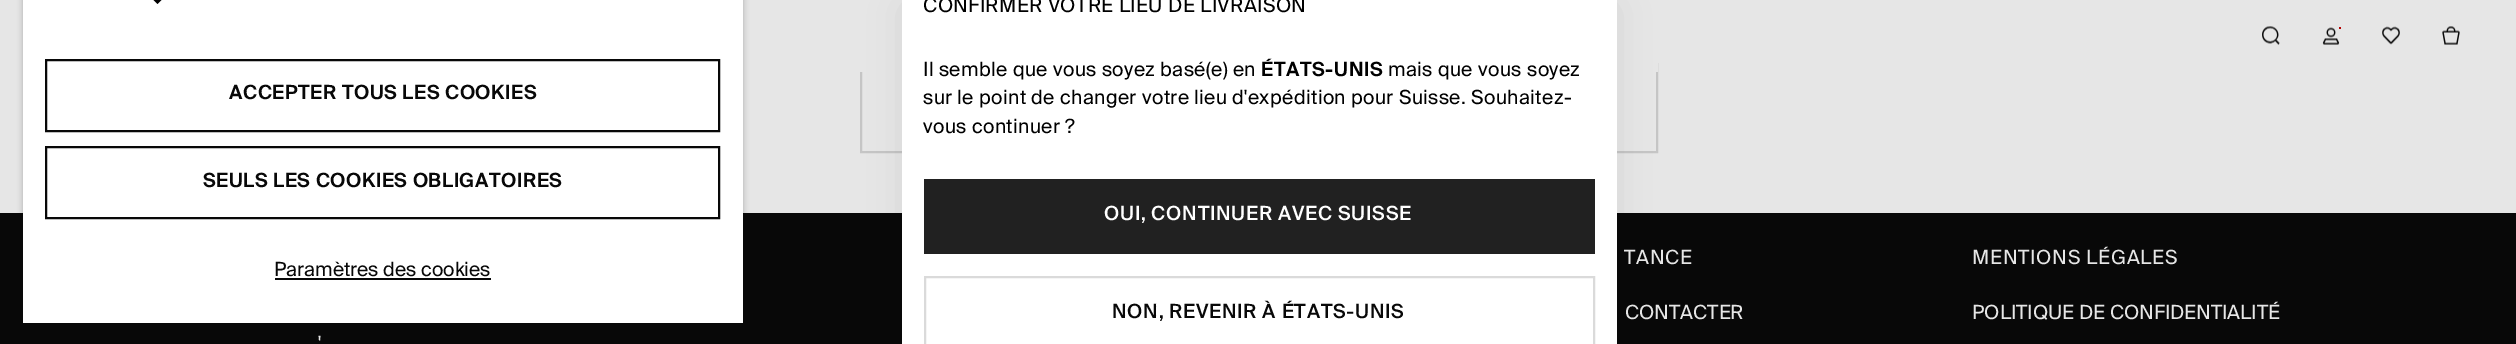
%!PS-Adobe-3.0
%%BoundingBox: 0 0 2516 344
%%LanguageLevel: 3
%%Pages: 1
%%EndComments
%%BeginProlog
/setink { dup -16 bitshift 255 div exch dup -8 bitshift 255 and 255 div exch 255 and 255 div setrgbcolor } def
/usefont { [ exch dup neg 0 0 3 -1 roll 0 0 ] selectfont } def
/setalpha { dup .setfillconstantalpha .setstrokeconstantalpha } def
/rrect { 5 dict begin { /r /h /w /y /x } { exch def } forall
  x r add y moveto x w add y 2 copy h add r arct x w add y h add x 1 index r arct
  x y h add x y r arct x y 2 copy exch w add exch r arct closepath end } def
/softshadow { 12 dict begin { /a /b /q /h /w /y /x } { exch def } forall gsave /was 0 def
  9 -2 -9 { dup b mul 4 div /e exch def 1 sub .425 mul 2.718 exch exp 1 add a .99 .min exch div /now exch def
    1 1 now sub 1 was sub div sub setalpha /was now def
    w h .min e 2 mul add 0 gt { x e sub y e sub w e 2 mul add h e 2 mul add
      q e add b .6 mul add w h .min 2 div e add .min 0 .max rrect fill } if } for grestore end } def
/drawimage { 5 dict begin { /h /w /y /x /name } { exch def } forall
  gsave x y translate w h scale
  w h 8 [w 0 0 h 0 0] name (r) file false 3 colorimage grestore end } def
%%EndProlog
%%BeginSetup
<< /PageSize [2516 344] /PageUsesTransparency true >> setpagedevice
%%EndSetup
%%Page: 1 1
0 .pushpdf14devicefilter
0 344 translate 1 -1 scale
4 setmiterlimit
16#E6E6E6 setink
0 0 2516 344 rectfill
16#080808 setink
0 213 2516 131 rectfill
16#000000 setink
23 -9 720 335 0 3 0.25 softshadow
16#FFFFFF setink
23 0 720 323 rectfill
16#000000 setink
2.6 setlinewidth
1 setlinecap
150.5 -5 moveto 157.5 2 lineto 164.5 -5 lineto stroke
16#080808 setink
2 setlinewidth
0 setlinecap
46 60 673 71 rectstroke
/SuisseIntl-SemiBold 19.5 usefont
229 99 moveto 0.6 0 (ACCEPTER TOUS LES COOKIES) ashow
46 147 673 71 rectstroke
203 187 moveto 0.6 0 (SEULS LES COOKIES OBLIGATOIRES) ashow
/SuisseIntl-Regular 19.5 usefont
274 276 moveto (Paramètres des cookies) show
275 278 216 2 rectfill
16#C5C5C5 setink
861 64 796 88 rectstroke
16#E6E6E6 setink
860 63 798 9 rectfill
16#000000 setink
909 9 701 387 0 19 0.1 softshadow
16#FFFFFF setink
902 0 715 344 rectfill
16#000000 setink
923 12 moveto 0.4 0 (CONFIRMER VOTRE LIEU DE LIVRAISON) ashow
923 76 moveto 0.4 0 (Il semble que vous soyez basé\(e\) en) ashow
/SuisseIntl-SemiBold 19.5 usefont
1261 76 moveto 0.6 0 (ÉTATS-UNIS) ashow
/SuisseIntl-Regular 19.5 usefont
1388 76 moveto 0.4 0 (mais que vous soyez) ashow
923 104 moveto 0.4 0 (sur le point de changer votre lieu d'expédition pour Suisse. Souhaitez-) ashow
923 133 moveto 0.4 0 (vous continuer ?) ashow
16#212121 setink
924 179 671 75 rectfill
/SuisseIntl-Medium 19.5 usefont
16#FFFFFF setink
1104 220 moveto 0.75 0 (OUI, CONTINUER AVEC SUISSE) ashow
16#DADADA setink
925 277 669 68 rectstroke
16#080808 setink
1112 318 moveto 0.75 0 (NON, REVENIR À ÉTATS-UNIS) ashow
(img1.raw) 2262 26 18 19 drawimage
(img2.raw) 2322 27 18 18 drawimage
16#B50101 setink
2339 27 2 2 rectfill
(img3.raw) 2382 26 18 19 drawimage
(img4.raw) 2442 26 18 19 drawimage
/SuisseIntl-Regular 19.5 usefont
16#E6E6E6 setink
1624 264 moveto 0.75 0 (TANCE) ashow
1625 319 moveto (CONTACTER) show
1972 264 moveto 0.75 0 (MENTIONS LÉGALES) ashow
1972 319 moveto (POLITIQUE DE CONFIDENTIALITÉ) show
318 350 moveto (') show
.poppdf14devicefilter showpage
%%EOF
